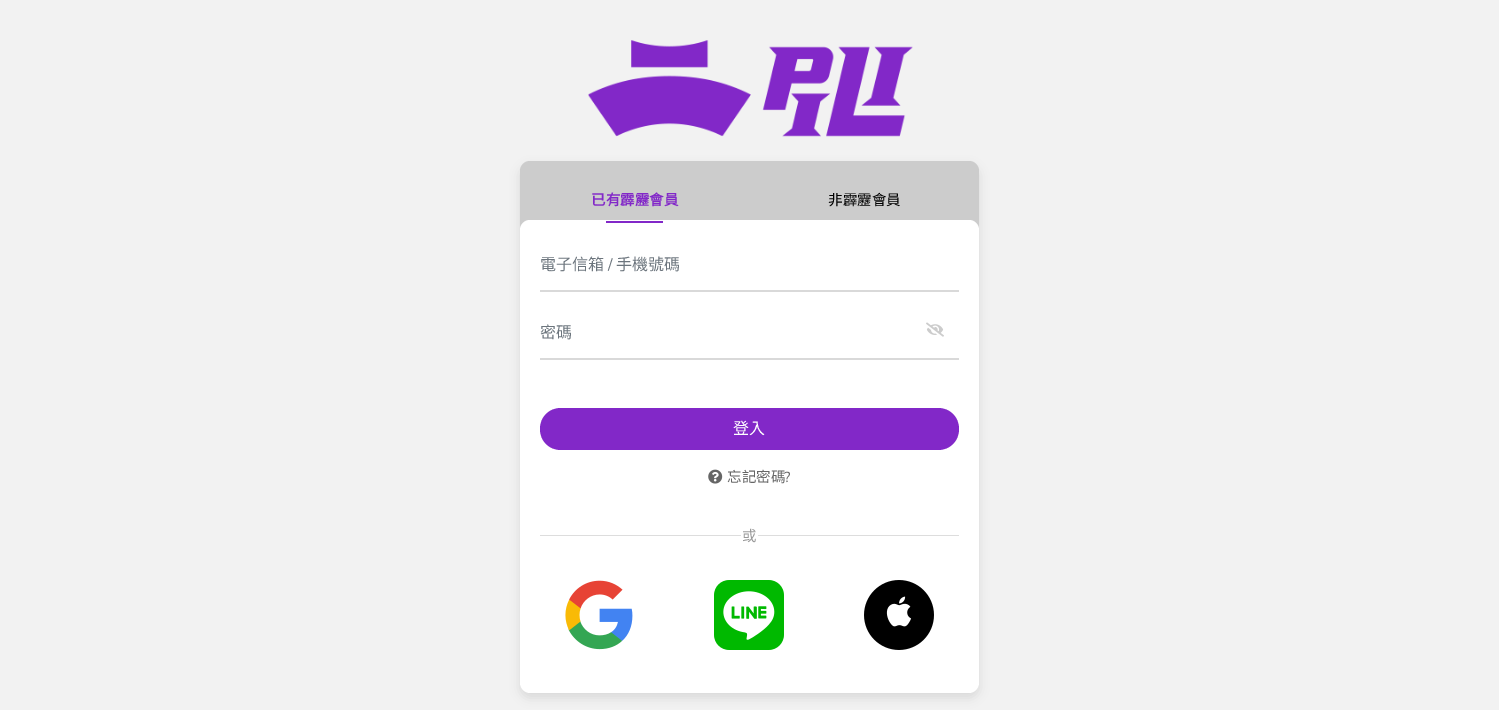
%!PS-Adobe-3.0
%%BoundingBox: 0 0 1499 710
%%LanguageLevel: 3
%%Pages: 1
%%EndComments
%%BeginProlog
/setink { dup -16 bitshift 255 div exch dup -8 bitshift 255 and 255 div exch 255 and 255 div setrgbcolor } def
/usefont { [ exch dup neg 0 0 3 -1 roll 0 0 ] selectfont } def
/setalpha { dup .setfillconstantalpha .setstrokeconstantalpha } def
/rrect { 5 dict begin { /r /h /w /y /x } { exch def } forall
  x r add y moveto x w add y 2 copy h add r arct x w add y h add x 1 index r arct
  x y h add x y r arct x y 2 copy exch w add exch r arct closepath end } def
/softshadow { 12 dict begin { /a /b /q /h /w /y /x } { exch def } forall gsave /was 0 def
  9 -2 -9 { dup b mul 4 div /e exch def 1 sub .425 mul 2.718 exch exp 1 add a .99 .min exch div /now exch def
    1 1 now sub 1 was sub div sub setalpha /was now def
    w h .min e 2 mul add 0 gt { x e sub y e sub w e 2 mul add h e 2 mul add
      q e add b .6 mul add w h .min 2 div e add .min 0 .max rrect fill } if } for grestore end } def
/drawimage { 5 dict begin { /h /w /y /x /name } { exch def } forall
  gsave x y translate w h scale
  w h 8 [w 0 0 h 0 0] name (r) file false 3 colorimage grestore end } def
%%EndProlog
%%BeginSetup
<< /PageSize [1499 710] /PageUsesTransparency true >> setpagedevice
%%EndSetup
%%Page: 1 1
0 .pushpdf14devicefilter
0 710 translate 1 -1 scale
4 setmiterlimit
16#F2F2F2 setink
0 0 1499 710 rectfill
(img1.raw) 588 40 325 97 drawimage
16#000000 setink
520 166 459 532 10 5 0.1 softshadow
16#CCCCCC setink
520 161 459 532 10 rrect fill
/NotoSansCJKTC-Bold 14.5 usefont
16#8228C8 setink
591 205 moveto (已有霹靂會員) show
16#FFFFFF setink
520 220 459 473 10 rrect fill
16#8228C8 setink
606 221 57 2 rectfill
/NotoSansCJKTC-Regular 14.5 usefont
16#000000 setink
828 205 moveto (非霹靂會員) show
16#D9D9D9 setink
540 290 419 2 rectfill
/NotoSansCJKTC-Regular 16 usefont
16#6C757D setink
540 270 moveto (電子信箱) show
/Nunito-Regular 16 usefont
608 270 moveto (/) show
/NotoSansCJKTC-Regular 16 usefont
616 270 moveto (手機號碼) show
16#D9D9D9 setink
540 358 419 2 rectfill
16#6C757D setink
540 338 moveto (密碼) show
(img2.raw) 926 322 18 15 drawimage
16#8228C8 setink
561 408 moveto 938 408 lineto 950 408 959 417 959 429 curveto 959 441 950 450 938 450 curveto 561 450 lineto 549 450 540 441 540 429 curveto 540 417 549 408 561 408 curveto closepath fill
16#FFFFFF setink
733 434 moveto (登入) show
(img3.raw) 708 469 15 15 drawimage
/NotoSansCJKTC-Regular 14.5 usefont
16#666666 setink
727 482 moveto (忘記密碼) show
/Nunito-Regular 14.5 usefont
784 482 moveto (?) show
16#DDDDDD setink
540 535 201 1 rectfill
/NotoSansCJKTC-Regular 14.5 usefont
16#999999 setink
742 541 moveto (或) show
16#DDDDDD setink
758 535 201 1 rectfill
(img4.raw) 565 580 68 70 drawimage
(img5.raw) 714 580 70 70 drawimage
(img6.raw) 864 580 70 70 drawimage
.poppdf14devicefilter showpage
%%EOF
